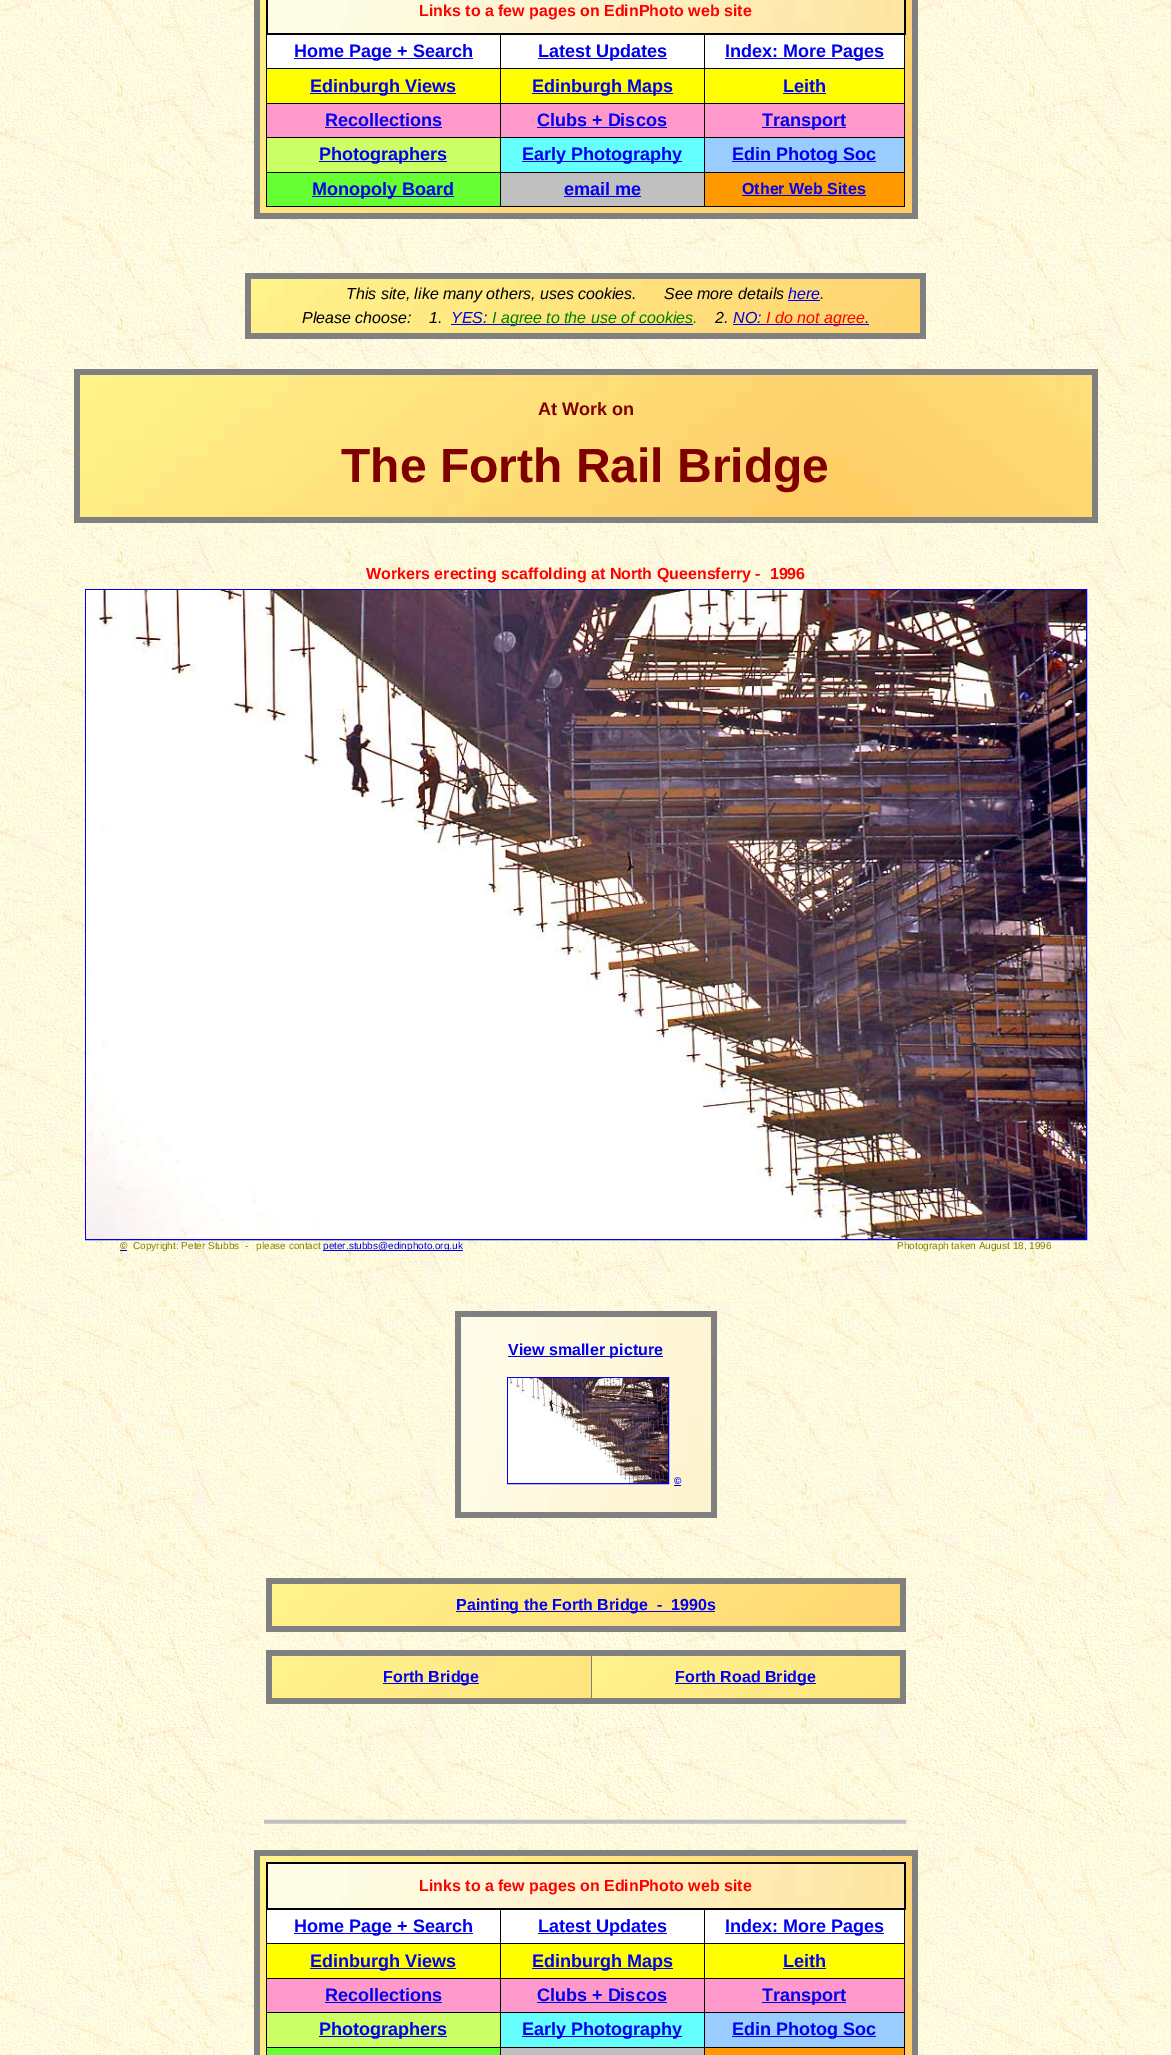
%!PS-Adobe-3.0
%%BoundingBox: 0 0 1171 2055
%%LanguageLevel: 3
%%Pages: 1
%%EndComments
%%BeginProlog
/setink { dup -16 bitshift 255 div exch dup -8 bitshift 255 and 255 div exch 255 and 255 div setrgbcolor } def
/usefont { [ exch dup neg 0 0 3 -1 roll 0 0 ] selectfont } def
/drawimage { 5 dict begin { /h /w /y /x /name } { exch def } forall
  gsave x y translate w h scale
  w h 8 [w 0 0 h 0 0] name (r) file false 3 colorimage grestore end } def
%%EndProlog
%%BeginSetup
<< /PageSize [1171 2055] >> setpagedevice
%%EndSetup
%%Page: 1 1
0 2055 translate 1 -1 scale
4 setmiterlimit
16#FFFFFF setink
0 0 1171 2055 rectfill
(img1.raw) 0 0 1171 2055 drawimage
[
    [912 0 6 219 16#808080]
    [254 213 664 6 16#808080]
    [254 0 6 219 16#808080]
] { aload pop setink rectfill } forall
(img2.raw) 260 0 652 213 drawimage
(img3.raw) 268 0 636 33 drawimage
[
    [704 68 201 1 16#000000]
    [704 103 201 1 16#000000]
    [704 137 201 1 16#000000]
    [704 172 201 1 16#000000]
    [904 172 1 35 16#000000]
    [904 137 1 36 16#000000]
    [904 103 1 35 16#000000]
    [904 33 1 71 16#000000]
    [904 0 2 35 16#000000]
    [704 206 201 1 16#000000]
    [704 172 1 35 16#000000]
    [500 172 205 1 16#000000]
    [704 137 1 36 16#000000]
    [500 137 205 1 16#000000]
    [704 103 1 35 16#000000]
    [500 103 205 1 16#000000]
    [704 68 1 36 16#000000]
    [500 68 205 1 16#000000]
    [500 206 205 1 16#000000]
    [500 172 1 35 16#000000]
    [266 172 235 1 16#000000]
    [500 137 1 36 16#000000]
    [266 137 235 1 16#000000]
    [500 103 1 35 16#000000]
    [266 103 235 1 16#000000]
    [500 68 1 36 16#000000]
    [266 68 235 1 16#000000]
    [500 33 1 36 16#000000]
    [704 33 1 36 16#000000]
    [266 206 235 1 16#000000]
    [266 172 1 35 16#000000]
    [266 137 1 36 16#000000]
    [266 103 1 35 16#000000]
    [266 33 1 71 16#000000]
    [266 33 640 2 16#000000]
    [266 0 2 35 16#000000]
] { aload pop setink rectfill } forall
/LiberationSans-Bold 16 usefont
16#FF0000 setink
419 16 moveto (Links to a few pages on EdinPhoto web site) show
16#FFFFFF setink
267 35 233 33 rectfill
16#0000EE setink
294 58 179 1 rectfill
/LiberationSans-Bold 18 usefont
294 57 moveto (Home Page + Search) show
16#FFFFFF setink
501 35 203 33 rectfill
16#0000EE setink
538 58 129 1 rectfill
538 57 moveto (Latest Updates) show
16#FFFFFF setink
705 35 199 33 rectfill
16#0000EE setink
725 58 159 1 rectfill
725 57 moveto (Index: More Pages) show
16#FFFF00 setink
267 69 233 34 rectfill
16#0000EE setink
310 93 146 1 rectfill
310 92 moveto (Edinburgh Views) show
16#FFFF00 setink
501 69 203 34 rectfill
16#0000EE setink
532 93 141 1 rectfill
532 92 moveto (Edinburgh Maps) show
16#FFFF00 setink
705 69 199 34 rectfill
16#0000EE setink
783 92 moveto (Leith) show
783 93 43 1 rectfill
16#FF99CC setink
267 104 233 33 rectfill
16#0000EE setink
325 126 moveto (Recollections) show
325 127 117 1 rectfill
16#FF99CC setink
501 104 203 33 rectfill
16#0000EE setink
537 126 moveto (Clubs + Discos) show
[
    [537 127 130 1 16#0000EE]
    [705 104 199 33 16#FF99CC]
    [762 127 84 1 16#0000EE]
] { aload pop setink rectfill } forall
762 126 moveto (Transport) show
16#CCFF66 setink
267 138 233 34 rectfill
16#0000EE setink
319 161 128 1 rectfill
319 160 moveto (Photographers) show
16#66FFFF setink
501 138 203 34 rectfill
16#0000EE setink
522 161 160 1 rectfill
522 160 moveto (Early Photography) show
16#99CCFF setink
705 138 199 34 rectfill
16#0000EE setink
732 161 144 1 rectfill
732 160 moveto (Edin Photog Soc) show
16#66FF33 setink
267 173 233 33 rectfill
16#0000EE setink
312 196 142 1 rectfill
312 195 moveto (Monopoly Board) show
16#C0C0C0 setink
501 173 203 33 rectfill
16#0000EE setink
564 195 moveto (email me) show
564 196 77 1 rectfill
16#FF9900 setink
705 173 199 33 rectfill
/LiberationSans-Bold 16 usefont
16#0000EE setink
742 194 moveto (Other Web Sites) show
[
    [742 195 124 1 16#0000EE]
    [245 273 681 6 16#808080]
    [920 273 6 66 16#808080]
    [245 333 681 6 16#808080]
    [245 273 6 66 16#808080]
] { aload pop setink rectfill } forall
(img4.raw) 251 279 669 54 drawimage
/LiberationSans-Italic 16 usefont
16#000000 setink
346 299 moveto (This site, like many others, uses cookies.) show
664 299 moveto (See more details) show
16#0000EE setink
788 299 moveto (here) show
16#800000 setink
820 299 moveto (.) show
16#0000EE setink
788 300 32 1 rectfill
16#000000 setink
302 323 moveto (Please choose:    1.) show
16#0000EE setink
451 323 moveto (YES:) show
451 324 242 1 rectfill
16#008000 setink
492 323 moveto (I agree to the use of cookies.) show
16#000000 setink
715 323 moveto (2.) show
16#0000EE setink
733 323 moveto (NO:) show
733 324 136 1 rectfill
16#FF0000 setink
766 323 moveto (I do not agree) show
16#0000EE setink
865 323 moveto (.) show
[
    [74 369 1024 6 16#808080]
    [1092 369 6 154 16#808080]
    [74 517 1024 6 16#808080]
    [74 369 6 154 16#808080]
] { aload pop setink rectfill } forall
(img5.raw) 80 375 1012 142 drawimage
/LiberationSans-Bold 18 usefont
16#800000 setink
538 415 moveto (At Work on) show
/LiberationSans-Bold 48 usefont
341 482 moveto (The Forth Rail Bridge) show
/LiberationSans-Bold 16 usefont
16#FF0000 setink
366 579 moveto (Workers erecting scaffolding at North Queensferry -  1996) show
16#0000EE setink
85.5 589.5 1001 650 rectstroke
(img6.raw) 86 590 1000 649 drawimage
/LiberationSans-Bold 10 usefont
16#808000 setink
120 1249 moveto (©) show
16#0000EE setink
120 1250 7 1 rectfill
/LiberationSans-Regular 10 usefont
16#808000 setink
133 1249 moveto (Copyright: Peter Stubbs  -   please contact) show
16#0000EE setink
323 1250 140 1 rectfill
323 1249 moveto (peter.stubbs@edinphoto.org.uk) show
16#808000 setink
897 1249 moveto (Photograph taken August 18, 1996) show
[
    [455 1311 262 6 16#808080]
    [711 1311 6 207 16#808080]
    [455 1512 262 6 16#808080]
    [455 1311 6 207 16#808080]
] { aload pop setink rectfill } forall
(img7.raw) 461 1317 250 195 drawimage
16#0000EE setink
508 1356 155 1 rectfill
/LiberationSans-Bold 16 usefont
508 1355 moveto (View smaller picture) show
507.5 1377.5 161 106 rectstroke
(img8.raw) 508 1378 160 105 drawimage
/LiberationSans-Bold 10 usefont
674 1484 moveto (©) show
[
    [674 1485 7 1 16#0000EE]
    [266 1578 640 6 16#808080]
    [900 1578 6 54 16#808080]
    [266 1626 640 6 16#808080]
    [266 1578 6 54 16#808080]
] { aload pop setink rectfill } forall
(img9.raw) 272 1584 628 42 drawimage
16#0000EE setink
456 1611 259 1 rectfill
/LiberationSans-Bold 16 usefont
456 1610 moveto (Painting the Forth Bridge  -  1990s) show
[
    [591 1653 1 49 16#808080]
    [266 1650 640 6 16#808080]
    [900 1650 6 54 16#808080]
    [266 1698 640 6 16#808080]
    [266 1650 6 54 16#808080]
] { aload pop setink rectfill } forall
(img10.raw) 272 1656 319 42 drawimage
16#0000EE setink
383 1683 96 1 rectfill
383 1682 moveto (Forth Bridge) show
(img11.raw) 592 1656 308 42 drawimage
675 1683 141 1 rectfill
675 1682 moveto (Forth Road Bridge) show
/LiberationSans-Regular 64 usefont
16#C0C0C0 setink
265 1811 moveto (__________________) show
[
    [254 1850 664 6 16#808080]
    [912 1850 6 205 16#808080]
    [254 1850 6 205 16#808080]
] { aload pop setink rectfill } forall
(img12.raw) 260 1856 652 199 drawimage
(img13.raw) 268 1864 636 44 drawimage
[
    [266 1862 640 2 16#000000]
    [704 1943 201 1 16#000000]
    [704 1978 201 1 16#000000]
    [704 2012 201 1 16#000000]
    [704 2047 201 1 16#000000]
    [704 2048 201 7 16#FF9900]
    [904 2047 1 8 16#000000]
    [904 2012 1 36 16#000000]
    [904 1978 1 35 16#000000]
    [904 1908 1 71 16#000000]
    [904 1862 2 48 16#000000]
    [704 2047 1 8 16#000000]
    [500 2047 205 1 16#000000]
    [704 2012 1 36 16#000000]
    [500 2012 205 1 16#000000]
    [704 1978 1 35 16#000000]
    [500 1978 205 1 16#000000]
    [704 1943 1 36 16#000000]
    [500 1943 205 1 16#000000]
    [500 2048 204 7 16#C0C0C0]
    [500 2047 1 8 16#000000]
    [266 2047 235 1 16#000000]
    [500 2012 1 36 16#000000]
    [266 2012 235 1 16#000000]
    [500 1978 1 35 16#000000]
    [266 1978 235 1 16#000000]
    [500 1943 1 36 16#000000]
    [266 1943 235 1 16#000000]
    [500 1908 1 36 16#000000]
    [704 1908 1 36 16#000000]
    [266 2047 1 8 16#000000]
    [266 2012 1 36 16#000000]
    [266 1978 1 35 16#000000]
    [266 1908 1 71 16#000000]
    [266 1908 640 2 16#000000]
    [266 1862 2 48 16#000000]
] { aload pop setink rectfill } forall
/LiberationSans-Bold 16 usefont
16#FF0000 setink
419 1891 moveto (Links to a few pages on EdinPhoto web site) show
16#FFFFFF setink
267 1910 233 33 rectfill
16#0000EE setink
294 1933 179 1 rectfill
/LiberationSans-Bold 18 usefont
294 1932 moveto (Home Page + Search) show
16#FFFFFF setink
501 1910 203 33 rectfill
16#0000EE setink
538 1933 129 1 rectfill
538 1932 moveto (Latest Updates) show
16#FFFFFF setink
705 1910 199 33 rectfill
16#0000EE setink
725 1933 159 1 rectfill
725 1932 moveto (Index: More Pages) show
16#FFFF00 setink
267 1944 233 34 rectfill
16#0000EE setink
310 1968 146 1 rectfill
310 1967 moveto (Edinburgh Views) show
16#FFFF00 setink
501 1944 203 34 rectfill
16#0000EE setink
532 1968 141 1 rectfill
532 1967 moveto (Edinburgh Maps) show
16#FFFF00 setink
705 1944 199 34 rectfill
16#0000EE setink
783 1967 moveto (Leith) show
783 1968 43 1 rectfill
16#FF99CC setink
267 1979 233 33 rectfill
16#0000EE setink
325 2001 moveto (Recollections) show
325 2002 117 1 rectfill
16#FF99CC setink
501 1979 203 33 rectfill
16#0000EE setink
537 2001 moveto (Clubs + Discos) show
[
    [537 2002 130 1 16#0000EE]
    [705 1979 199 33 16#FF99CC]
    [762 2002 84 1 16#0000EE]
] { aload pop setink rectfill } forall
762 2001 moveto (Transport) show
16#CCFF66 setink
267 2013 233 34 rectfill
16#0000EE setink
319 2036 128 1 rectfill
319 2035 moveto (Photographers) show
16#66FFFF setink
501 2013 203 34 rectfill
16#0000EE setink
522 2036 160 1 rectfill
522 2035 moveto (Early Photography) show
16#99CCFF setink
705 2013 199 34 rectfill
16#0000EE setink
732 2036 144 1 rectfill
732 2035 moveto (Edin Photog Soc) show
16#66FF33 setink
267 2048 233 7 rectfill
showpage
%%EOF
